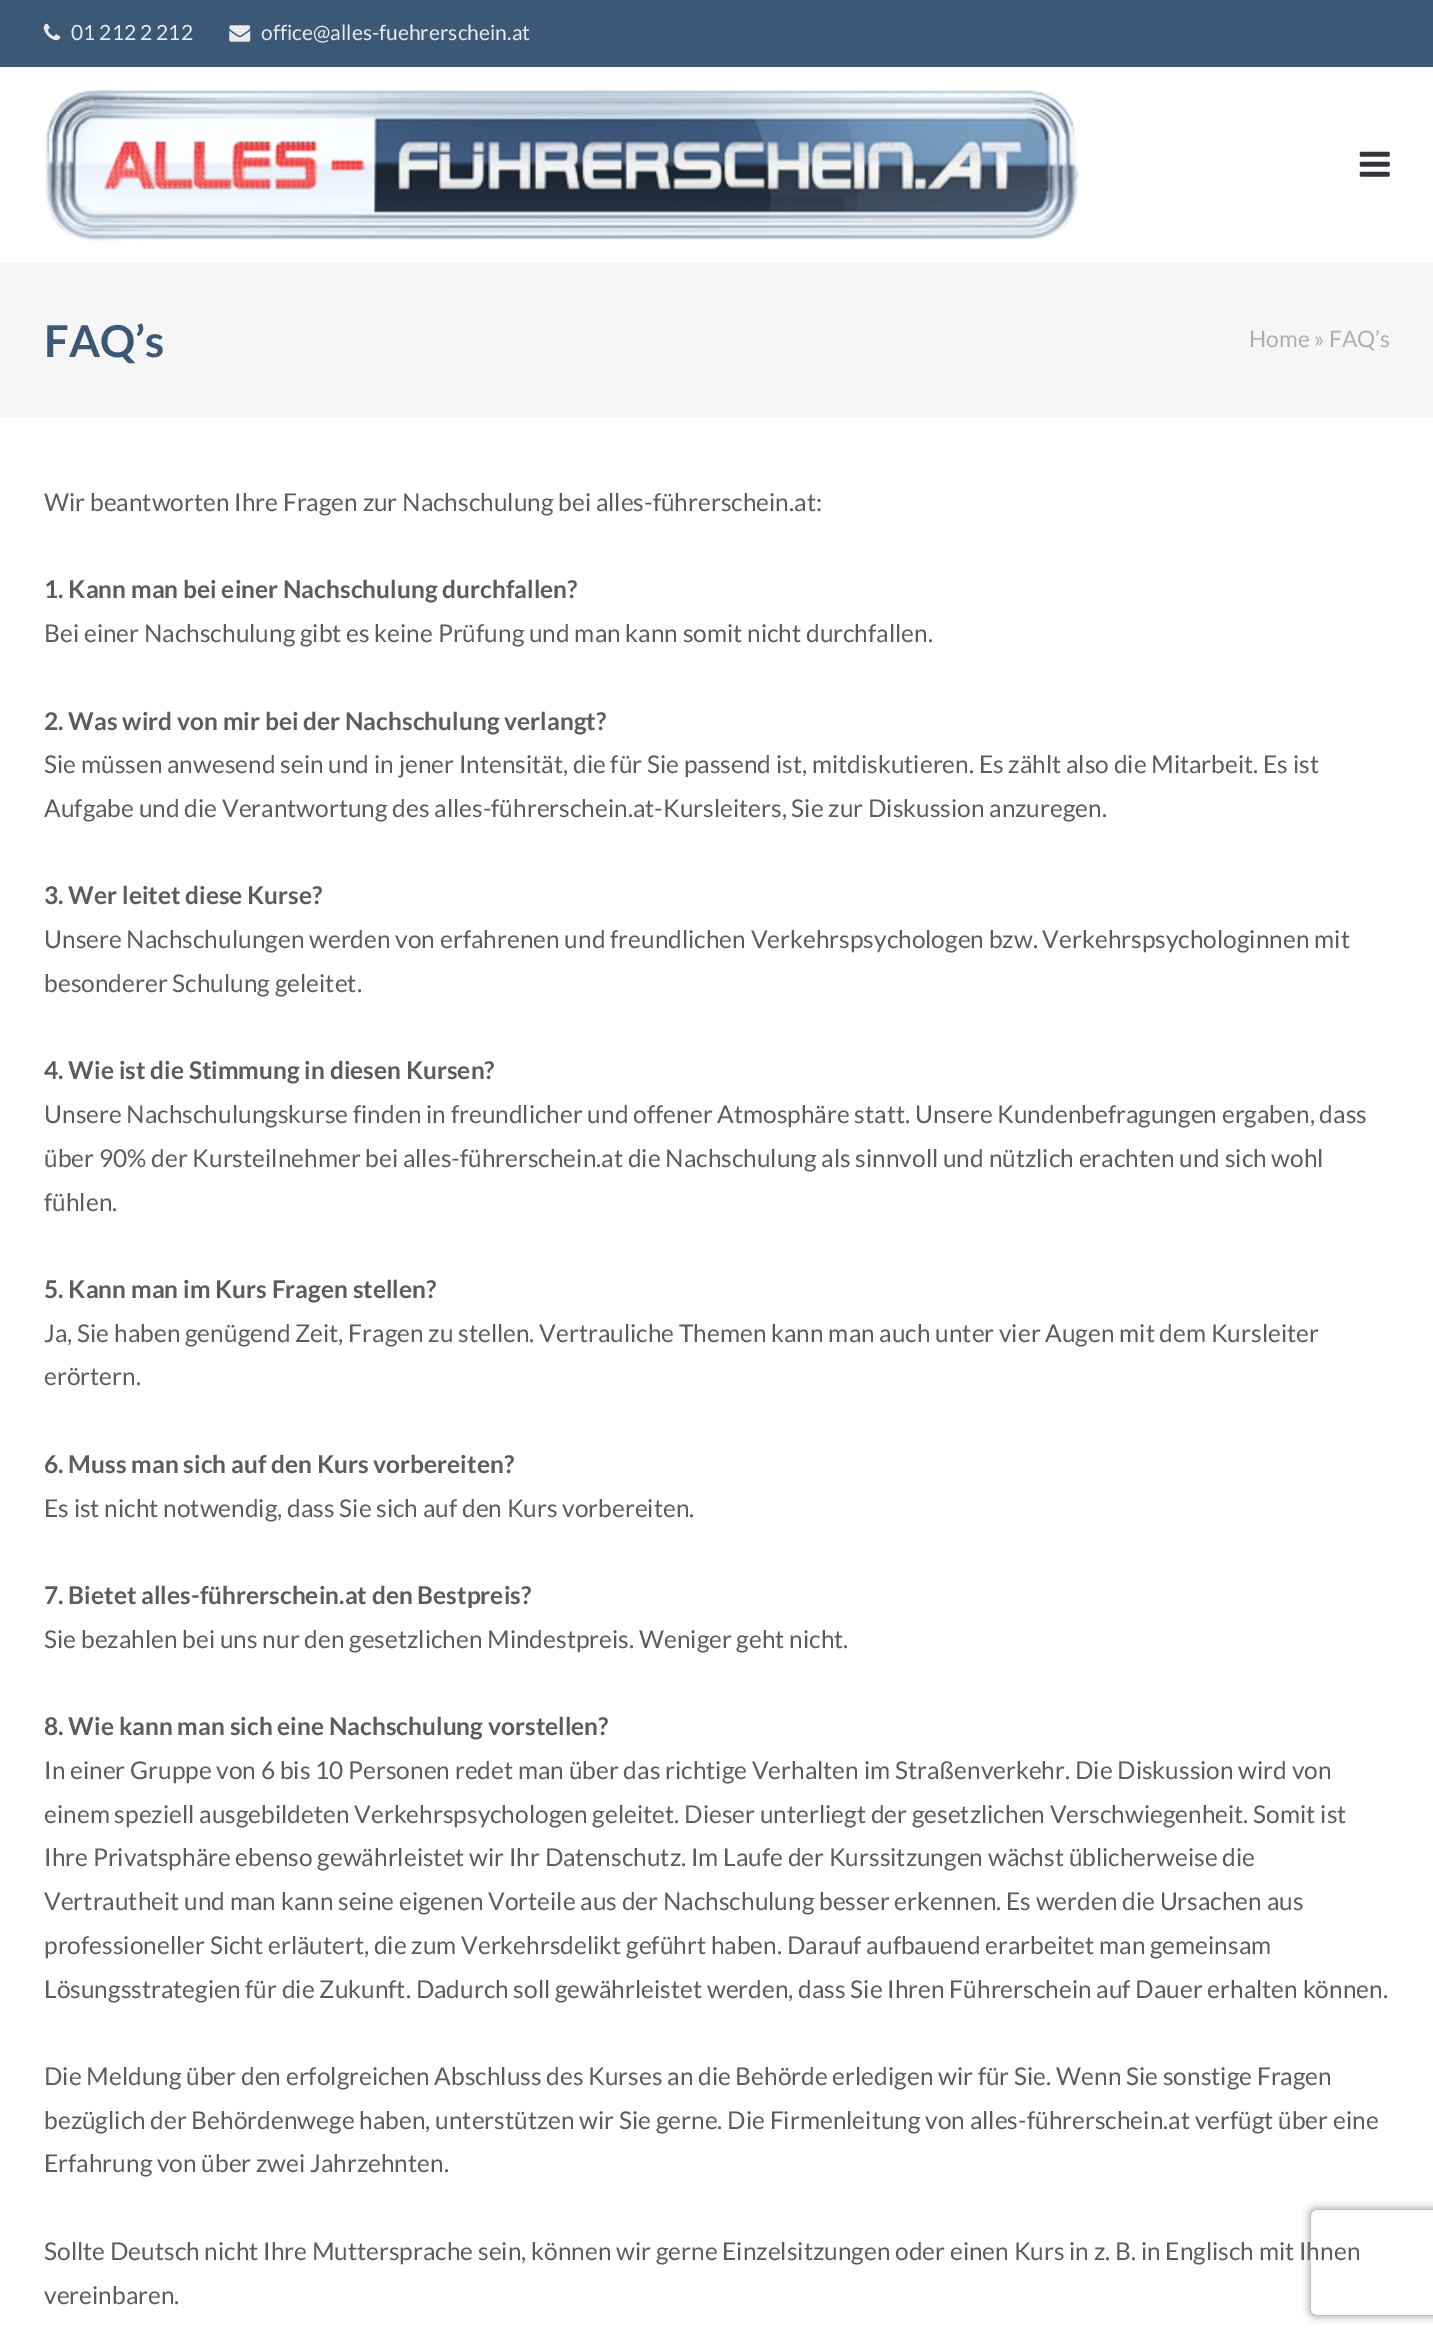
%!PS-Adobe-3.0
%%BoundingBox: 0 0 1433 2339
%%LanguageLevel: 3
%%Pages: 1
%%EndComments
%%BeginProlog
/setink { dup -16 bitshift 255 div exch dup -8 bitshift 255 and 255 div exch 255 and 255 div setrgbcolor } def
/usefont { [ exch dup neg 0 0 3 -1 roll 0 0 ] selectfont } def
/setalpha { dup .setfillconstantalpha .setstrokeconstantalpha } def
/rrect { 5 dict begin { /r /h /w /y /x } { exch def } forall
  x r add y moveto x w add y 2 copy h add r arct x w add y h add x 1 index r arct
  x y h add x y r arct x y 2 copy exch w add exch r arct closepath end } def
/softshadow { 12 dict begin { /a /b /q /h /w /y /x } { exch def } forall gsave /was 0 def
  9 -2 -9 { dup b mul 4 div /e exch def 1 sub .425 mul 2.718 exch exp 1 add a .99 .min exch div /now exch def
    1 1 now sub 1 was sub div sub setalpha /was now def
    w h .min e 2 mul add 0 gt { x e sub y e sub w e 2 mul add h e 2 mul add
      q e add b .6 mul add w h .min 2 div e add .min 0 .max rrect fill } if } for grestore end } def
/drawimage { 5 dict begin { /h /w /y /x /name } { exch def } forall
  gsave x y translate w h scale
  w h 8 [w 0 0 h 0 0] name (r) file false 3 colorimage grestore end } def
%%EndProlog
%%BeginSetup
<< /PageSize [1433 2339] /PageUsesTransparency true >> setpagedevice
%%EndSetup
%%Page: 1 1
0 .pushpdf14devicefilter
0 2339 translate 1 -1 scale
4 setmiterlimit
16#FFFFFF setink
0 0 1433 2339 rectfill
16#3B5877 setink
0 0 1433 67 rectfill
(img1.raw) 43 23 18 18 drawimage
/Lato-Regular 21 usefont
16#EBEBEA setink
71 40 moveto (01 212 2 212) show
(img2.raw) 229 25 22 17 drawimage
261 40 moveto (office@alles-fuehrerschein.at) show
(img3.raw) 45 89 1034 152 drawimage
(img4.raw) 1359 151 31 26 drawimage
16#F6F6F7 setink
0 263 1433 154 rectfill
/Lato-Bold 44 usefont
16#3B5877 setink
44 357 moveto (FAQ’s) show
/Lato-Regular 22.75 usefont
16#ACAEAF setink
1249 347 moveto (Home » FAQ’s) show
/Lato-Regular 24.5 usefont
16#5A5D60 setink
44 511 moveto (Wir beantworten Ihre Fragen zur Nachschulung bei alles-führerschein.at:) show
/Lato-Bold 24.5 usefont
44 598 moveto (1. Kann man bei einer Nachschulung durchfallen?) show
/Lato-Regular 24.5 usefont
44 642 moveto (Bei einer Nachschulung gibt es keine Prüfung und man kann somit nicht durchfallen.) show
/Lato-Bold 24.5 usefont
44 730 moveto (2. Was wird von mir bei der Nachschulung verlangt?) show
/Lato-Regular 24.5 usefont
44 773 moveto (Sie müssen anwesend sein und in jener Intensität, die für Sie passend ist, mitdiskutieren. Es zählt also die Mitarbeit. Es ist) show
44 817 moveto (Aufgabe und die Verantwortung des alles-führerschein.at-Kursleiters, Sie zur Diskussion anzuregen.) show
/Lato-Bold 24.5 usefont
44 904 moveto (3. Wer leitet diese Kurse?) show
/Lato-Regular 24.5 usefont
44 948 moveto (Unsere Nachschulungen werden von erfahrenen und freundlichen Verkehrspsychologen bzw. Verkehrspsychologinnen mit) show
44 992 moveto (besonderer Schulung geleitet.) show
/Lato-Bold 24.5 usefont
44 1079 moveto (4. Wie ist die Stimmung in diesen Kursen?) show
/Lato-Regular 24.5 usefont
[
    [(Unsere Nachschulungskurse finden in freundlicher und offener Atmosphäre statt. Unsere Kundenbefragungen ergaben, dass) 44 1123]
    [(über 90% der Kursteilnehmer bei alles-führerschein.at die Nachschulung als sinnvoll und nützlich erachten und sich wohl) 44 1167]
    [(fühlen.) 44 1211]
] { aload pop moveto show } forall
/Lato-Bold 24.5 usefont
44 1298 moveto (5. Kann man im Kurs Fragen stellen?) show
/Lato-Regular 24.5 usefont
44 1342 moveto (Ja, Sie haben genügend Zeit, Fragen zu stellen. Vertrauliche Themen kann man auch unter vier Augen mit dem Kursleiter) show
44 1385 moveto (erörtern.) show
/Lato-Bold 24.5 usefont
44 1473 moveto (6. Muss man sich auf den Kurs vorbereiten?) show
/Lato-Regular 24.5 usefont
44 1517 moveto (Es ist nicht notwendig, dass Sie sich auf den Kurs vorbereiten.) show
/Lato-Bold 24.5 usefont
44 1604 moveto (7. Bietet alles-führerschein.at den Bestpreis?) show
/Lato-Regular 24.5 usefont
44 1648 moveto (Sie bezahlen bei uns nur den gesetzlichen Mindestpreis. Weniger geht nicht.) show
/Lato-Bold 24.5 usefont
44 1735 moveto (8. Wie kann man sich eine Nachschulung vorstellen?) show
/Lato-Regular 24.5 usefont
[
    [(In einer Gruppe von 6 bis 10 Personen redet man über das richtige Verhalten im Straßenverkehr. Die Diskussion wird von) 44 1779]
    [(einem speziell ausgebildeten Verkehrspsychologen geleitet. Dieser unterliegt der gesetzlichen Verschwiegenheit. Somit ist) 44 1823]
    [(Ihre Privatsphäre ebenso gewährleistet wir Ihr Datenschutz. Im Laufe der Kurssitzungen wächst üblicherweise die) 44 1866]
    [(Vertrautheit und man kann seine eigenen Vorteile aus der Nachschulung besser erkennen. Es werden die Ursachen aus) 44 1910]
    [(professioneller Sicht erläutert, die zum Verkehrsdelikt geführt haben. Darauf aufbauend erarbeitet man gemeinsam) 44 1954]
    [(Lösungsstrategien für die Zukunft. Dadurch soll gewährleistet werden, dass Sie Ihren Führerschein auf Dauer erhalten können.) 44 1998]
    [(Die Meldung über den erfolgreichen Abschluss des Kurses an die Behörde erledigen wir für Sie. Wenn Sie sonstige Fragen) 44 2085]
    [(bezüglich der Behördenwege haben, unterstützen wir Sie gerne. Die Firmenleitung von alles-führerschein.at verfügt über eine) 44 2129]
    [(Erfahrung von über zwei Jahrzehnten.) 44 2172]
    [(Sollte Deutsch nicht Ihre Muttersprache sein, können wir gerne Einzelsitzungen oder einen Kurs in z. B. in Englisch mit Ihnen) 44 2260]
    [(vereinbaren.) 44 2304]
] { aload pop moveto show } forall
gsave
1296 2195 moveto 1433 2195 lineto 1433 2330 lineto 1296 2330 lineto closepath 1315 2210 moveto 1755 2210 lineto 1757 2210 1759 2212 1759 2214 curveto 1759 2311 lineto 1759 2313 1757 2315 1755 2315 curveto 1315 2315 lineto 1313 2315 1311 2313 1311 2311 curveto 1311 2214 lineto 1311 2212 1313 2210 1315 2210 curveto closepath eoclip newpath
16#808080 setink
1311 2210 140 105 4 4.5 1 softshadow
grestore
.poppdf14devicefilter showpage
%%EOF
